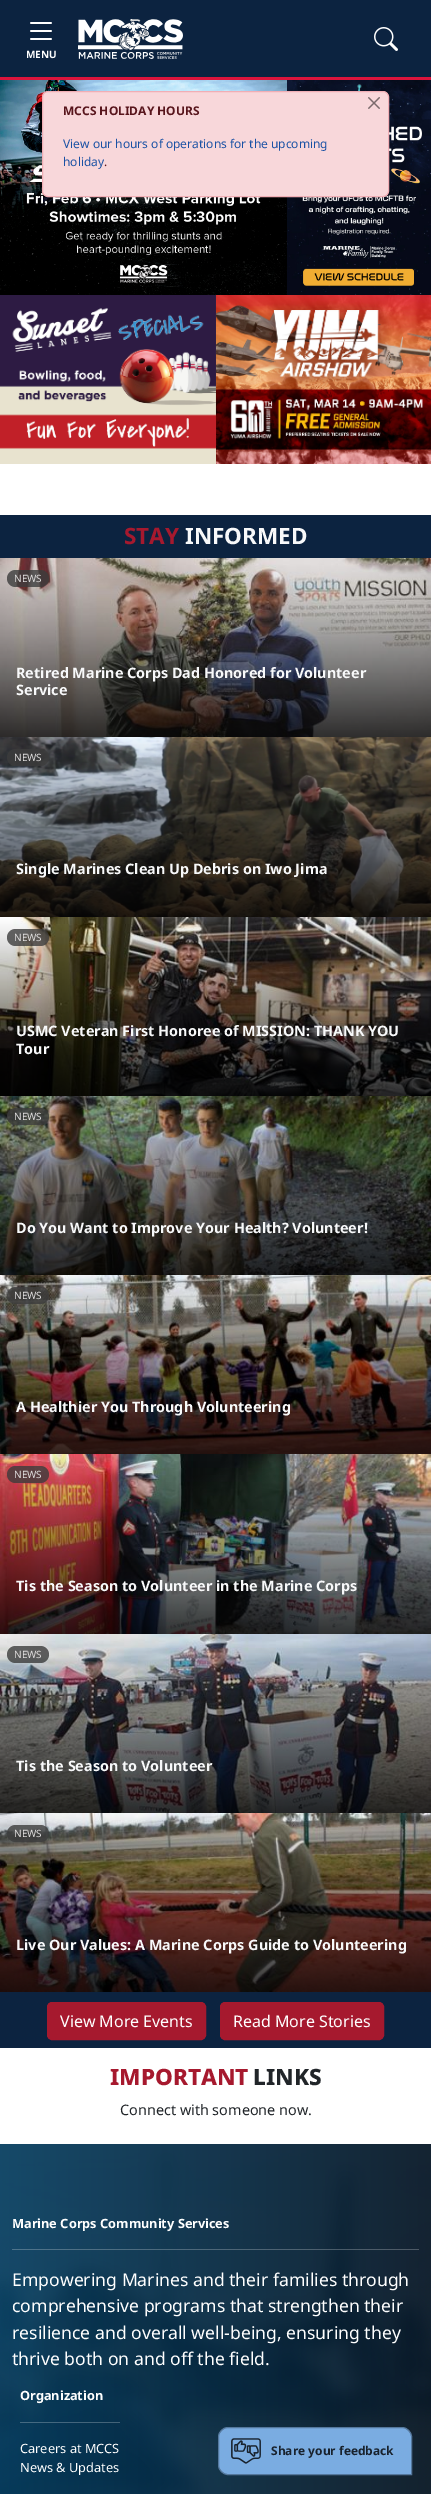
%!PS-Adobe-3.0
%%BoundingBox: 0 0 431 2494
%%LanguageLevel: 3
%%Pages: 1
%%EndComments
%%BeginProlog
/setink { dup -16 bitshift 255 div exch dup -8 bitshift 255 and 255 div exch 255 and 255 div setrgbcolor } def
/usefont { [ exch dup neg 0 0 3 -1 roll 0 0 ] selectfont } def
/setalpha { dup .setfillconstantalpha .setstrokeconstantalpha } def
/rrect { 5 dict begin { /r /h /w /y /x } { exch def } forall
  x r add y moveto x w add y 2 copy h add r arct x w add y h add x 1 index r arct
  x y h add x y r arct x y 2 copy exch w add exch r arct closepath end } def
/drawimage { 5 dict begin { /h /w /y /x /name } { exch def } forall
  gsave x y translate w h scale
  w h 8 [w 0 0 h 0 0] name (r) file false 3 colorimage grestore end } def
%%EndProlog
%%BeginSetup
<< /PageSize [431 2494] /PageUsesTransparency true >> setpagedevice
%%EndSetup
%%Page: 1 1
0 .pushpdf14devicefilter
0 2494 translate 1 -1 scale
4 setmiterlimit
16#FFFFFF setink
0 0 431 2494 rectfill
16#0C2340 setink
0 0 431 77 rectfill
16#DC143C setink
0 77 431 3 rectfill
(img1.raw) 374 27 24 24 drawimage
(img2.raw) 30 22 22 18 drawimage
/NotoSans-Bold 10 usefont
16#FFFFFF setink
26 58 moveto (MENU) show
(img3.raw) 78 19 105 40 drawimage
(img4.raw) 0 80 287 215 drawimage
(img5.raw) 287 80 144 215 drawimage
(img6.raw) 0 295 216 169 drawimage
(img7.raw) 216 295 215 169 drawimage
16#F8D7DA setink
42.5 91.5 346 105 5.5 rrect gsave fill grestore
16#F1AEB5 setink
stroke
(img8.raw) 368 97 12 12 drawimage
/NotoSans-Bold 12 usefont
16#58151C setink
63 115 moveto (MCCS HOLIDAY HOURS) show
/NotoSans-Regular 12 usefont
16#1A51A4 setink
63 148 moveto (View our hours of operations for the upcoming) show
63 166 moveto (holiday) show
16#58151C setink
104 166 moveto (.) show
16#0C2340 setink
0 515 431 1533 rectfill
/NotoSans-Bold 22.5 usefont
16#A6192E setink
124 544 moveto (STAY) show
16#F8F9FA setink
185 544 moveto (INFORMED) show
(img9.raw) 0 558 431 179 drawimage
0.8 setalpha
16#3C3C3C setink
7 570 42 17 8.5 rrect fill
/NotoSans-Regular 10 usefont
1 setalpha
16#DCDADA setink
14 582 moveto (NEWS) show
/NotoSans-Bold 14.4 usefont
16#F8F9FA setink
16 678 moveto (Retired Marine Corps Dad Honored for Volunteer) show
16 695 moveto (Service) show
(img10.raw) 0 737 431 180 drawimage
0.8 setalpha
16#3C3C3C setink
7 749 42 17 8.5 rrect fill
/NotoSans-Regular 10 usefont
1 setalpha
16#DCDADA setink
14 761 moveto (NEWS) show
/NotoSans-Bold 14.4 usefont
16#F8F9FA setink
16 874 moveto (Single Marines Clean Up Debris on Iwo Jima) show
(img11.raw) 0 917 431 179 drawimage
0.8 setalpha
16#3C3C3C setink
7 929 42 17 8.5 rrect fill
/NotoSans-Regular 10 usefont
1 setalpha
16#DCDADA setink
14 941 moveto (NEWS) show
/NotoSans-Bold 14.4 usefont
16#F8F9FA setink
16 1036 moveto (USMC Veteran First Honoree of MISSION: THANK YOU) show
16 1054 moveto (Tour) show
(img12.raw) 0 1096 431 179 drawimage
0.8 setalpha
16#3C3C3C setink
7 1108 42 17 8.5 rrect fill
/NotoSans-Regular 10 usefont
1 setalpha
16#DCDADA setink
14 1120 moveto (NEWS) show
/NotoSans-Bold 14.4 usefont
16#F8F9FA setink
16 1233 moveto (Do You Want to Improve Your Health? Volunteer!) show
(img13.raw) 0 1275 431 179 drawimage
0.8 setalpha
16#3C3C3C setink
7 1287 42 17 8.5 rrect fill
/NotoSans-Regular 10 usefont
1 setalpha
16#DCDADA setink
14 1299 moveto (NEWS) show
/NotoSans-Bold 14.4 usefont
16#F8F9FA setink
16 1412 moveto (A Healthier You Through Volunteering) show
(img14.raw) 0 1454 431 180 drawimage
0.8 setalpha
16#3C3C3C setink
7 1466 42 17 8.5 rrect fill
/NotoSans-Regular 10 usefont
1 setalpha
16#DCDADA setink
14 1478 moveto (NEWS) show
/NotoSans-Bold 14.4 usefont
16#F8F9FA setink
16 1591 moveto (Tis the Season to Volunteer in the Marine Corps) show
(img15.raw) 0 1634 431 179 drawimage
0.8 setalpha
16#3C3C3C setink
7 1646 42 17 8.5 rrect fill
/NotoSans-Regular 10 usefont
1 setalpha
16#DCDADA setink
14 1658 moveto (NEWS) show
/NotoSans-Bold 14.4 usefont
16#F8F9FA setink
16 1771 moveto (Tis the Season to Volunteer) show
(img16.raw) 0 1813 431 179 drawimage
0.8 setalpha
16#3C3C3C setink
7 1825 42 17 8.5 rrect fill
/NotoSans-Regular 10 usefont
1 setalpha
16#DCDADA setink
14 1837 moveto (NEWS) show
/NotoSans-Bold 14.4 usefont
16#F8F9FA setink
16 1950 moveto (Live Our Values: A Marine Corps Guide to Volunteering) show
16#A6192E setink
47.5 2002.5 158 37 4.5 rrect gsave fill grestore
stroke
/NotoSans-Regular 16 usefont
16#FFFFFF setink
60 2027 moveto (View More Events) show
16#A6192E setink
220.5 2002.5 163 37 4.5 rrect gsave fill grestore
stroke
16#FFFFFF setink
233 2027 moveto (Read More Stories) show
/NotoSans-ExtraBold 22.5 usefont
16#A6192E setink
110 2085 moveto (IMPORTANT) show
16#212529 setink
253 2085 moveto (LINKS) show
/NotoSans-Regular 14.4 usefont
120 2115 moveto (Connect with someone now.) show
(img17.raw) 0 2144 431 350 drawimage
/NotoSans-Bold 12.75 usefont
16#FFFFFF setink
12 2228 moveto (Marine Corps Community Services) show
0.25 setalpha
16#F8F9FA setink
12 2249 407 1 rectfill
/NotoSans-Regular 17.6 usefont
1 setalpha
16#FFFFFF setink
[
    [(Empowering Marines and their families through) 12 2286]
    [(comprehensive programs that strengthen their) 12 2312]
    [(resilience and overall well-being, ensuring they) 12 2339]
    [(thrive both on and off the field.) 12 2365]
] { aload pop moveto show } forall
/NotoSans-Bold 12.75 usefont
20 2400 moveto (Organization) show
0.25 setalpha
16#F8F9FA setink
20 2422 100 1 rectfill
/NotoSans-Regular 12.75 usefont
1 setalpha
16#FFFFFF setink
20 2453 moveto (Careers at MCCS) show
20 2472 moveto (News & Updates) show
16#7AACE1 setink
228 2427.5 moveto 402 2427.5 lineto 407 2427.5 411.5 2432 411.5 2437 curveto 411.5 2474.5 lineto 228 2474.5 lineto 223 2474.5 218.5 2470 218.5 2465 curveto 218.5 2437 lineto 218.5 2432 223 2427.5 228 2427.5 curveto closepath gsave fill grestore
16#55789D setink
stroke
(img18.raw) 231 2438 30 26 drawimage
/NotoSans-Bold 12 usefont
16#18222D setink
271 2455 moveto (Share your feedback) show
.poppdf14devicefilter showpage
%%EOF
